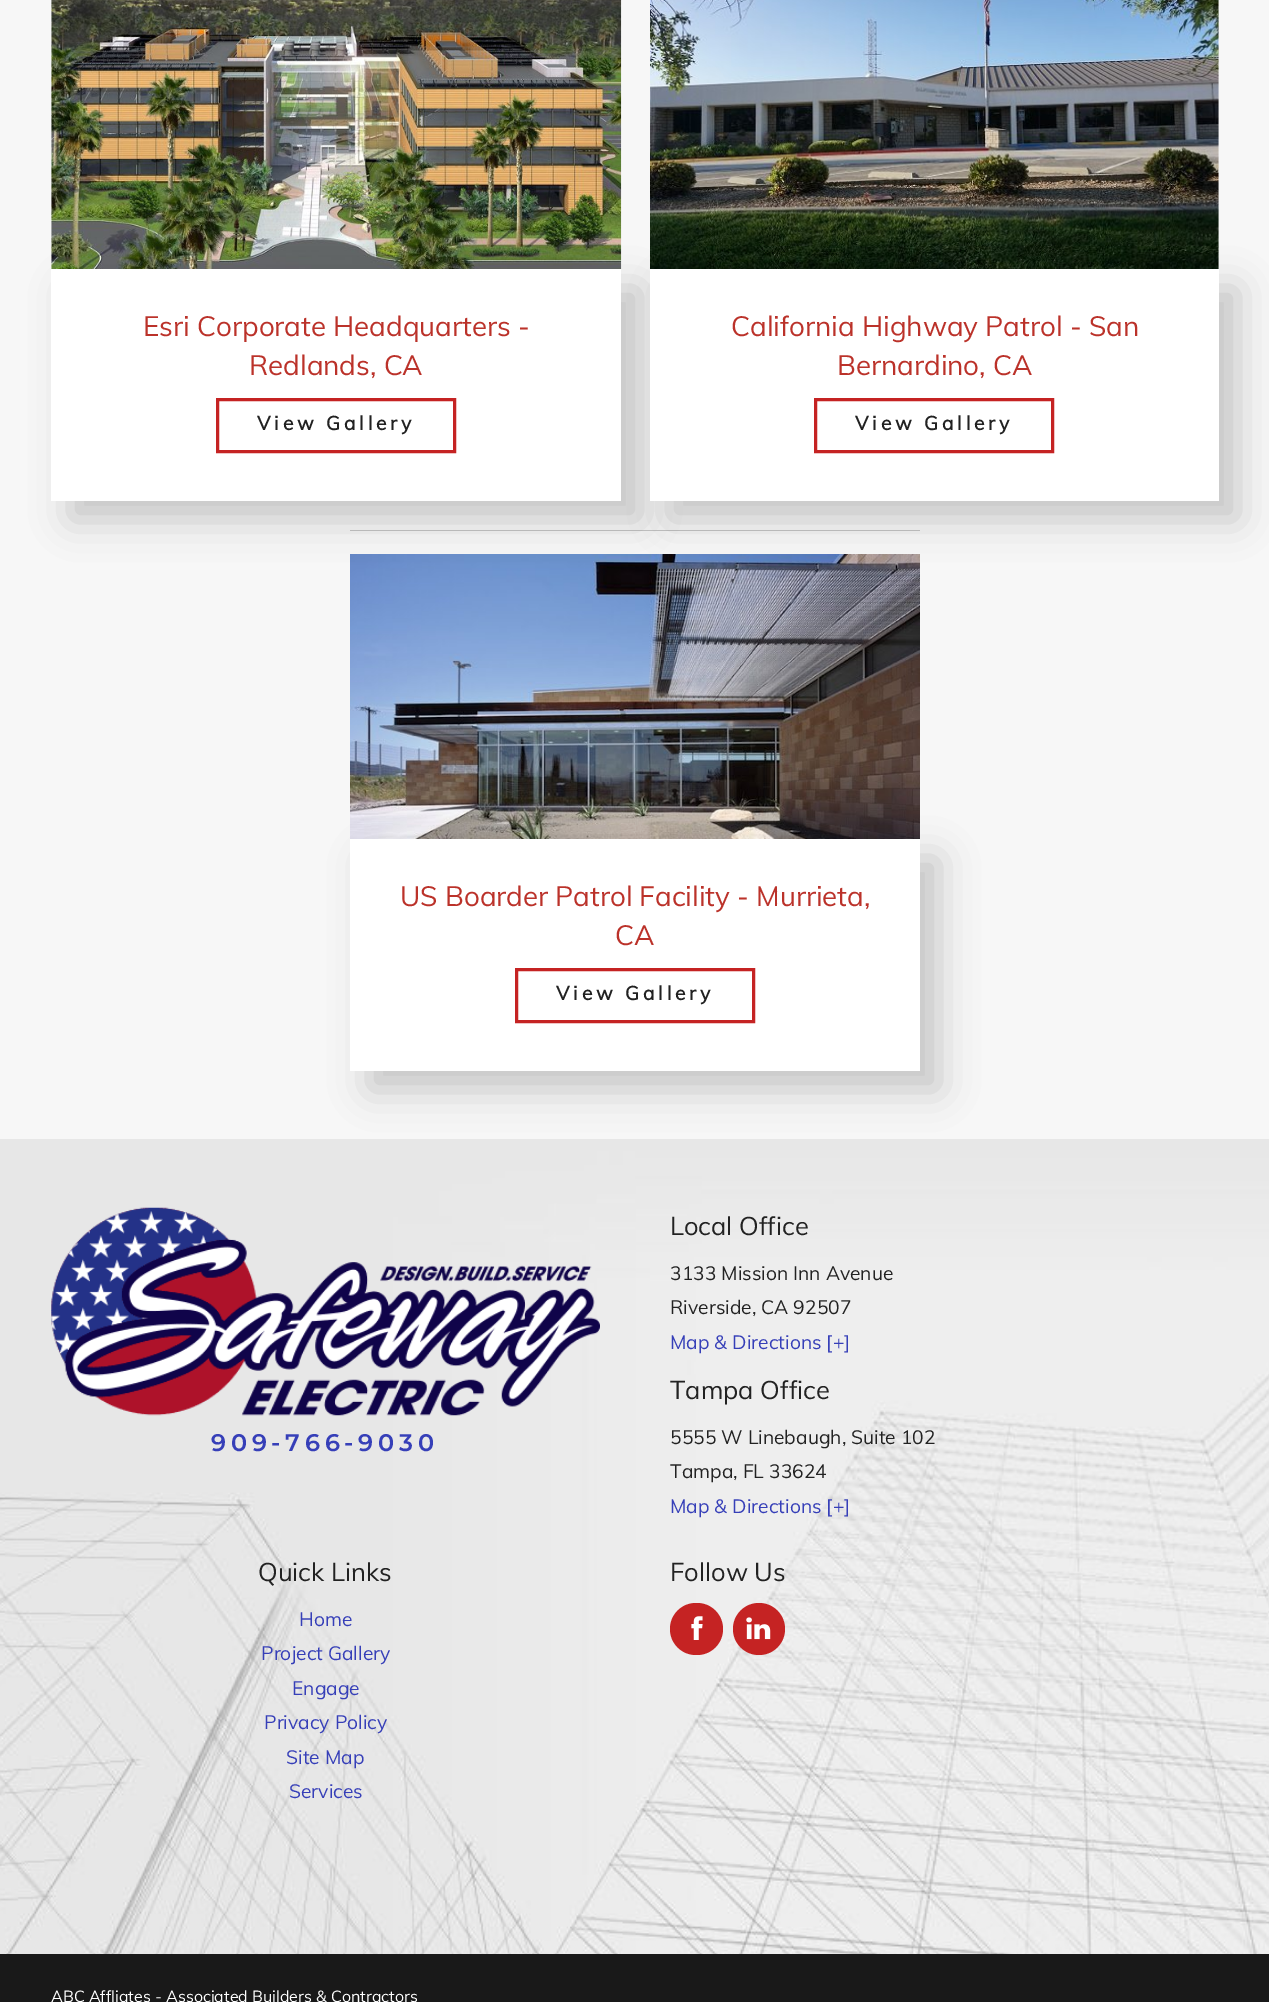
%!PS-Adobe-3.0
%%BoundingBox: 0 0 1269 2002
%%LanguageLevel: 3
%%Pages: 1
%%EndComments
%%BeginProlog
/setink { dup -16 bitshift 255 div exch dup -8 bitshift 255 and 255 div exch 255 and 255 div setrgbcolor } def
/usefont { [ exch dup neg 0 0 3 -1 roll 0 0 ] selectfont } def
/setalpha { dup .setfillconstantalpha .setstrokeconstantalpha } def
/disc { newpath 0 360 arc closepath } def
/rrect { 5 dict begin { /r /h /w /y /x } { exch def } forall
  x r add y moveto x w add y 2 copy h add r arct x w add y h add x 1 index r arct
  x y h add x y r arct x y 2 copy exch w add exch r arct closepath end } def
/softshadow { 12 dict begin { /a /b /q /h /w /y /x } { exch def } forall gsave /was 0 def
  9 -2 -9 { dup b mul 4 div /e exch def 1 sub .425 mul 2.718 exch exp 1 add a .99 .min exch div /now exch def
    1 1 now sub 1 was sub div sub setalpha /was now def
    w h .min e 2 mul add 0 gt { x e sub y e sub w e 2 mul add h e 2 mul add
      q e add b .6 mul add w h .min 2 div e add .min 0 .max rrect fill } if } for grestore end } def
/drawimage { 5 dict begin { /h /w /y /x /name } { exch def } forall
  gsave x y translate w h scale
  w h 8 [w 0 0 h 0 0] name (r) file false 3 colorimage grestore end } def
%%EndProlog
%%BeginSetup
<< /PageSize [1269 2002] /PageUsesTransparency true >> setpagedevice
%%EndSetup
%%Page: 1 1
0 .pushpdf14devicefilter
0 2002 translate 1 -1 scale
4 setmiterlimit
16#F7F7F7 setink
0 0 1269 2002 rectfill
(img1.raw) 51 0 571 269 drawimage
(img2.raw) 650 0 569 269 drawimage
16#C6C6C6 setink
350 530 570 1 rectfill
(img3.raw) 350 554 570 285 drawimage
16#000000 setink
70 288 570 232 0 19 0.2 softshadow
16#FFFFFF setink
51 269 570 232 rectfill
/Muli-Regular 27.75 usefont
16#BB322A setink
143 336 moveto (Esri Corporate Headquarters -) show
249 375 moveto (Redlands, CA) show
16#C52323 setink
3 setlinewidth
217.5 399.5 237 52 rectstroke
/Muli-Bold 19.25 usefont
16#222222 setink
257 430 moveto 3.8 0 (View Gallery) ashow
16#000000 setink
669 288 569 232 0 19 0.2 softshadow
16#FFFFFF setink
650 269 569 232 rectfill
/Muli-Regular 27.75 usefont
16#BB322A setink
731 336 moveto (California Highway Patrol - San) show
837 375 moveto (Bernardino, CA) show
16#C52323 setink
815.5 399.5 237 52 rectstroke
/Muli-Bold 19.25 usefont
16#222222 setink
855 430 moveto 3.8 0 (View Gallery) ashow
(img4.raw) 0 1139 1269 815 drawimage
16#000000 setink
369 858 570 232 0 19 0.2 softshadow
16#FFFFFF setink
350 839 570 232 rectfill
/Muli-Regular 27.75 usefont
16#BB322A setink
400 906 moveto (US Boarder Patrol Facility - Murrieta,) show
615 945 moveto (CA) show
16#C52323 setink
516.5 969.5 237 52 rectstroke
/Muli-Bold 19.25 usefont
16#222222 setink
556 1000 moveto 3.8 0 (View Gallery) ashow
(img5.raw) 51 1207 549 209 drawimage
/Montserrat-Thin 24 usefont
16#363FB8 setink
211 1451 moveto 4.75 0 (909-766-9030) ashow
/Muli-Regular 25.5 usefont
16#222222 setink
670 1235 moveto (Local Office) show
/Muli-Regular 19.25 usefont
670 1280 moveto (3133 Mission Inn Avenue) show
670 1314 moveto (Riverside, CA 92507) show
16#363FB8 setink
670 1349 moveto (Map & Directions [+]) show
/Muli-Regular 25.5 usefont
16#222222 setink
670 1399 moveto (Tampa Office) show
/Muli-Regular 19.25 usefont
670 1444 moveto (5555 W Linebaugh, Suite 102) show
670 1478 moveto (Tampa, FL 33624) show
16#363FB8 setink
670 1513 moveto (Map & Directions [+]) show
/Muli-Regular 25.5 usefont
16#222222 setink
258 1581 moveto (Quick Links) show
/Muli-Regular 19.25 usefont
16#363FB8 setink
[
    [(Home) 299 1626]
    [(Project Gallery) 261 1660]
    [(Engage) 292 1695]
    [(Privacy Policy) 264 1729]
    [(Site Map) 286 1764]
    [(Services) 289 1798]
] { aload pop moveto show } forall
/Muli-Regular 25.5 usefont
16#222222 setink
670 1581 moveto (Follow Us) show
16#C52323 setink
670 1603 53 52 26 rrect fill
(img6.raw) 691 1616 12 24 drawimage
759 1629 26 disc fill
(img7.raw) 746 1617 25 23 drawimage
16#191919 setink
0 1954 1269 48 rectfill
/Muli-Regular 16 usefont
16#FFFFFF setink
51 2002 moveto (ABC Affliates - Associated Builders & Contractors) show
.poppdf14devicefilter showpage
%%EOF
